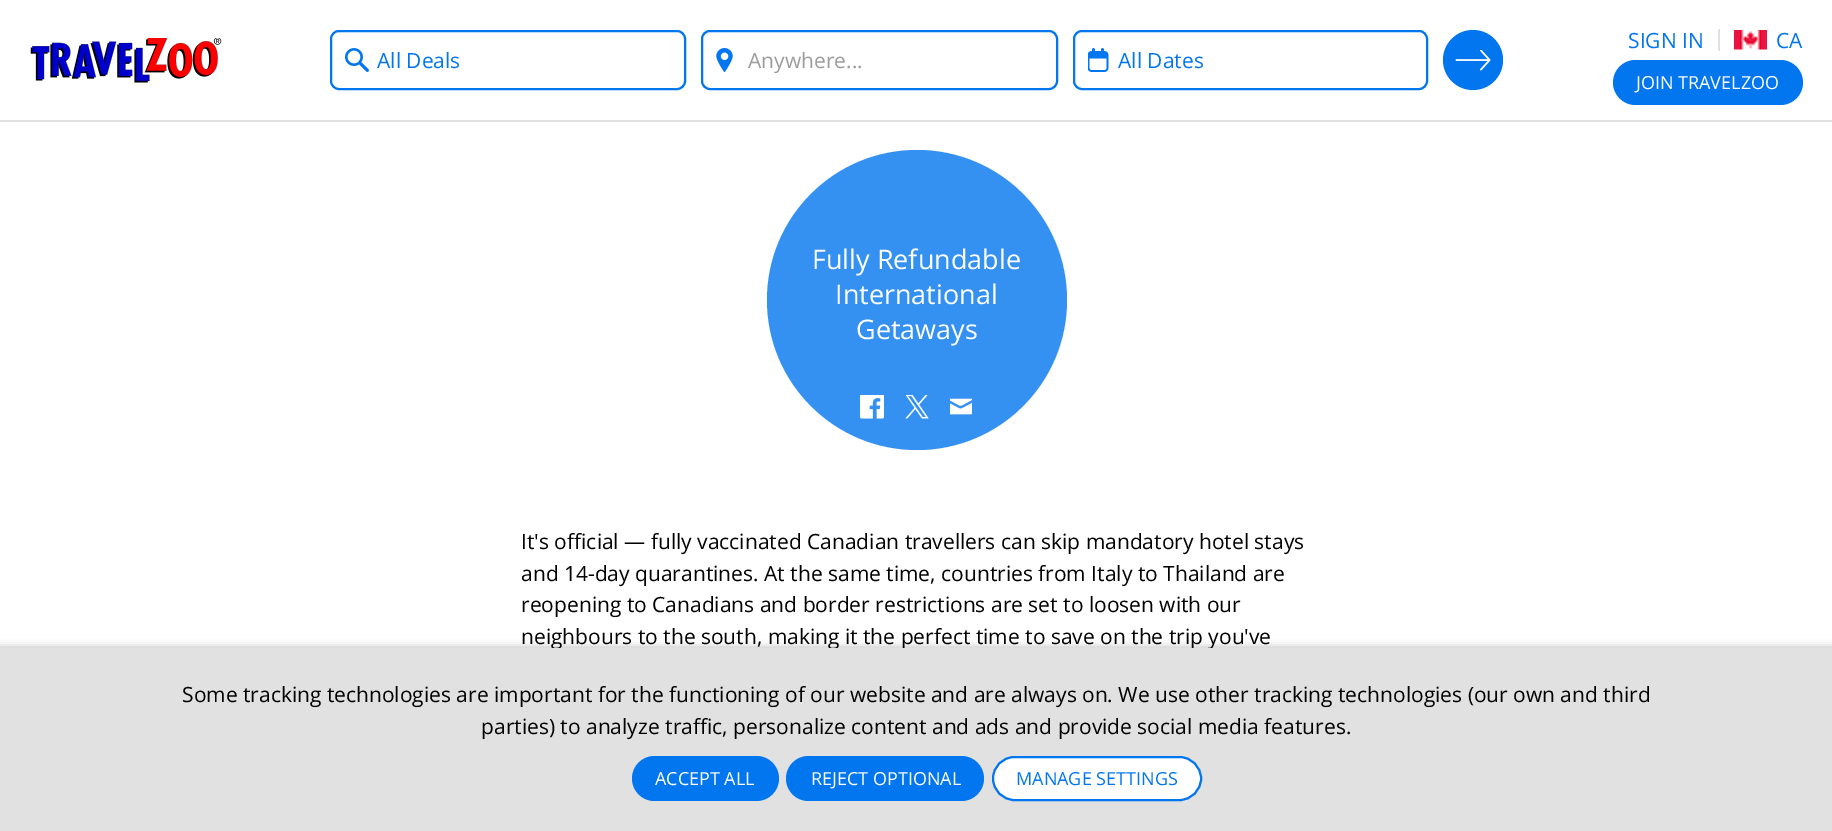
%!PS-Adobe-3.0
%%BoundingBox: 0 0 1832 831
%%LanguageLevel: 3
%%Pages: 1
%%EndComments
%%BeginProlog
/setink { dup -16 bitshift 255 div exch dup -8 bitshift 255 and 255 div exch 255 and 255 div setrgbcolor } def
/usefont { [ exch dup neg 0 0 3 -1 roll 0 0 ] selectfont } def
/setalpha { dup .setfillconstantalpha .setstrokeconstantalpha } def
/disc { newpath 0 360 arc closepath } def
/rrect { 5 dict begin { /r /h /w /y /x } { exch def } forall
  x r add y moveto x w add y 2 copy h add r arct x w add y h add x 1 index r arct
  x y h add x y r arct x y 2 copy exch w add exch r arct closepath end } def
/softshadow { 12 dict begin { /a /b /q /h /w /y /x } { exch def } forall gsave /was 0 def
  9 -2 -9 { dup b mul 4 div /e exch def 1 sub .425 mul 2.718 exch exp 1 add a .99 .min exch div /now exch def
    1 1 now sub 1 was sub div sub setalpha /was now def
    w h .min e 2 mul add 0 gt { x e sub y e sub w e 2 mul add h e 2 mul add
      q e add b .6 mul add w h .min 2 div e add .min 0 .max rrect fill } if } for grestore end } def
/drawimage { 5 dict begin { /h /w /y /x /name } { exch def } forall
  gsave x y translate w h scale
  w h 8 [w 0 0 h 0 0] name (r) file false 3 colorimage grestore end } def
%%EndProlog
%%BeginSetup
<< /PageSize [1832 831] /PageUsesTransparency true >> setpagedevice
%%EndSetup
%%Page: 1 1
0 .pushpdf14devicefilter
0 831 translate 1 -1 scale
4 setmiterlimit
16#FFFFFF setink
0 0 1832 831 rectfill
16#0276EE setink
2 setlinewidth
331 31 354 58 8 rrect stroke
(img1.raw) 345 48 24 24 drawimage
/OpenSans-Regular 21 usefont
377 68 moveto (All Deals) show
702 31 355 58 8 rrect stroke
(img2.raw) 716 48 17 24 drawimage
16#9C9C9C setink
748 68 moveto (Anywhere...) show
16#0276EE setink
1074 31 353 58 8 rrect stroke
(img3.raw) 1088 48 21 24 drawimage
1118 68 moveto (All Dates) show
1473 60 30 disc fill
(img4.raw) 1455 50 36 21 drawimage
(img5.raw) 30 38 192 45 drawimage
1628 48 moveto (SIGN IN) show
16#E1E1E1 setink
1718 29 2 22 rectfill
(img6.raw) 1734 30 33 20 drawimage
16#0276EE setink
1776 48 moveto (CA) show
1613 60 190 45 22.5 rrect fill
/OpenSans-Regular 18 usefont
16#FFFFFF setink
1636 89 moveto (JOIN TRAVELZOO) show
16#E1E1E1 setink
0 120 1832 2 rectfill
16#3591F1 setink
917 300 150 disc fill
/OpenSans-Regular 27 usefont
16#FFFFFF setink
[
    [(Fully Refundable) 812 269]
    [(International) 835 304]
    [(Getaways) 856 339]
] { aload pop moveto show } forall
(img7.raw) 860 395 24 24 drawimage
(img8.raw) 905 395 24 24 drawimage
(img9.raw) 950 398 22 17 drawimage
/OpenSans-Regular 21 usefont
16#000000 setink
[
    [(It's official — fully vaccinated Canadian travellers can skip mandatory hotel stays) 521 549]
    [(and 14-day quarantines. At the same time, countries from Italy to Thailand are) 521 581]
    [(reopening to Canadians and border restrictions are set to loosen with our) 521 612]
    [(neighbours to the south, making it the perfect time to save on the trip you've) 521 644]
] { aload pop moveto show } forall
0 647 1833 183 0 4 0.25 softshadow
16#E1E1E1 setink
0 648 1832 183 rectfill
16#000000 setink
182 702 moveto (Some tracking technologies are important for the functioning of our website and are always on. We use other tracking technologies \(our own and third) show
481 734 moveto (parties\) to analyze traffic, personalize content and ads and provide social media features.) show
16#0276EE setink
632 756 147 45 22.5 rrect fill
/OpenSans-Regular 18 usefont
16#FFFFFF setink
655 785 moveto (ACCEPT ALL) show
16#0276EE setink
786 756 198 45 22.5 rrect fill
16#FFFFFF setink
811 785 moveto (REJECT OPTIONAL) show
993 757 208 43 21.5 rrect gsave fill grestore
16#0276EE setink
stroke
1016 785 moveto (MANAGE SETTINGS) show
.poppdf14devicefilter showpage
%%EOF
